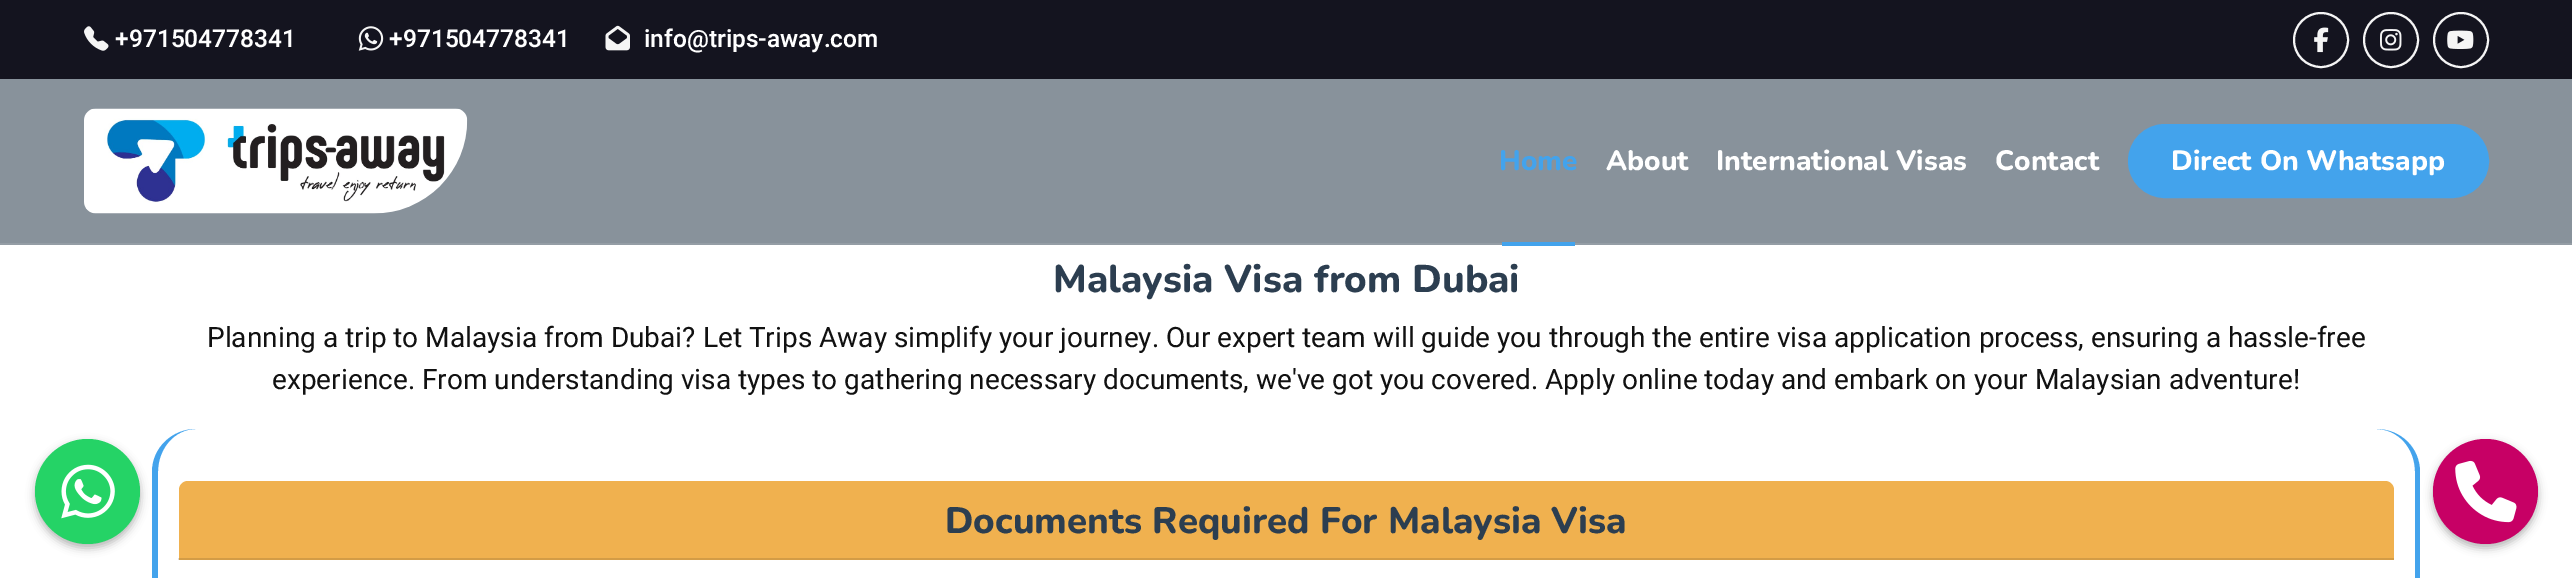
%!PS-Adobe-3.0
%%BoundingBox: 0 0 2572 578
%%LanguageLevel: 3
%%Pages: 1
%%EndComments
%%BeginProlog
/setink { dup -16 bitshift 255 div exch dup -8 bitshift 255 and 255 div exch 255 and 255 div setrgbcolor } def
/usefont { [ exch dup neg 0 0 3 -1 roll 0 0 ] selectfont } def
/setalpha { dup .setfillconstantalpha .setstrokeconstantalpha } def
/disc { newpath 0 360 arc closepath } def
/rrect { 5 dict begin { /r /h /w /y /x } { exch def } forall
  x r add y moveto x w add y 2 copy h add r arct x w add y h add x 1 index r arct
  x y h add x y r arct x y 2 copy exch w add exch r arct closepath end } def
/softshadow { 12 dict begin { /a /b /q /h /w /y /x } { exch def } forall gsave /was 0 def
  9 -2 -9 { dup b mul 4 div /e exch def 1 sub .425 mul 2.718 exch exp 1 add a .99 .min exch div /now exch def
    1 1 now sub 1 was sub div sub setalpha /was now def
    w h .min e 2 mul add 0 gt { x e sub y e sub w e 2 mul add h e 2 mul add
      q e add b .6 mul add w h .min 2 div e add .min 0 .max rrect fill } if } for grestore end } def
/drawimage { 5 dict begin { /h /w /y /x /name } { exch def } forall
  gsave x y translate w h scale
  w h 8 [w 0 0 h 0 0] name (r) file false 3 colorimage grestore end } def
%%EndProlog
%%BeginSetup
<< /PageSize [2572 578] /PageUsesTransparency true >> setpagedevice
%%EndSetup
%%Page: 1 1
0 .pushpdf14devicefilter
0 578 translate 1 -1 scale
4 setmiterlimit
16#FFFFFF setink
0 0 2572 578 rectfill
16#E0E0E0 setink
178 558 1 2 rectfill
16#14141F setink
0 0 2572 79 rectfill
(img1.raw) 84 26 25 25 drawimage
/Heebo-SemiBold 24.5 usefont
16#FFFFFF setink
115 47 moveto (+971504778341) show
(img2.raw) 358 26 26 25 drawimage
389 47 moveto (+971504778341) show
(img3.raw) 605 25 25 26 drawimage
644 47 moveto (info@trips-away.com) show
16#F5F5F5 setink
2 setlinewidth
2321 40 27 disc stroke
(img4.raw) 2314 27 15 26 drawimage
2391 40 27 disc stroke
(img5.raw) 2380 29 22 22 drawimage
2461 40 27 disc stroke
(img6.raw) 2447 30 27 19 drawimage
16#88929B setink
0 79 2572 164 rectfill
16#949DA5 setink
0 243 2572 2 rectfill
(img7.raw) 84 108 384 106 drawimage
/Nunito-ExtraBold 28 usefont
16#43A3EC setink
1499 170 moveto (Home) show
1502 242 73 4 rectfill
16#FFFFFF setink
[
    [(About) 1606 170]
    [(International Visas) 1716 170]
    [(Contact) 1995 170]
] { aload pop moveto show } forall
16#43A3EC setink
2129 125 359 72 36 rrect gsave fill grestore
stroke
16#FFFFFF setink
2171 170 moveto (Direct On Whatsapp) show
16#43A3EC setink
196 429 moveto 2376 429 lineto 2401 429 2420 448 2420 472 curveto 2420 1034 lineto 2420 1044 2412 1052 2403 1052 curveto 170 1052 lineto 160 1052 152 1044 152 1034 curveto 152 472 lineto 152 448 172 429 196 429 curveto closepath 196 429 moveto 2376 429 lineto 2398 429 2415 448 2415 472 curveto 2415 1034 lineto 2415 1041 2410 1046 2403 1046 curveto 170 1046 lineto 163 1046 158 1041 158 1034 curveto 158 472 lineto 158 448 175 429 196 429 curveto closepath eofill
16#000000 setink
35 443 105 105 52.5 4.5 0.3 softshadow
16#25D366 setink
87.5 491.5 52.5 disc fill
(img8.raw) 61 464 54 55 drawimage
/Nunito-ExtraBold 38.5 usefont
16#2C3E50 setink
1053 292 moveto (Malaysia Visa from Dubai) show
/Heebo-Regular 28 usefont
16#111111 setink
207 347 moveto (Planning a trip to Malaysia from Dubai? Let Trips Away simplify your journey. Our expert team will guide you through the entire visa application process, ensuring a hassle-free) show
272 389 moveto (experience. From understanding visa types to gathering necessary documents, we've got you covered. Apply online today and embark on your Malaysian adventure!) show
16#F0B14F setink
188 481 moveto 2385 481 lineto 2390 481 2394 485 2394 490 curveto 2394 560 lineto 179 560 lineto 179 490 lineto 179 485 183 481 188 481 curveto closepath fill
16#D39C46 setink
179 558 2215 2 rectfill
/Nunito-ExtraBold 36.75 usefont
16#2C3E50 setink
945 533 moveto (Documents Required For Malaysia Visa) show
16#000000 setink
2433 443 105 105 52.5 4.5 0.3 softshadow
16#C70065 setink
2485.5 491.5 52.5 disc fill
(img9.raw) 2455 460 62 63 drawimage
.poppdf14devicefilter showpage
%%EOF
